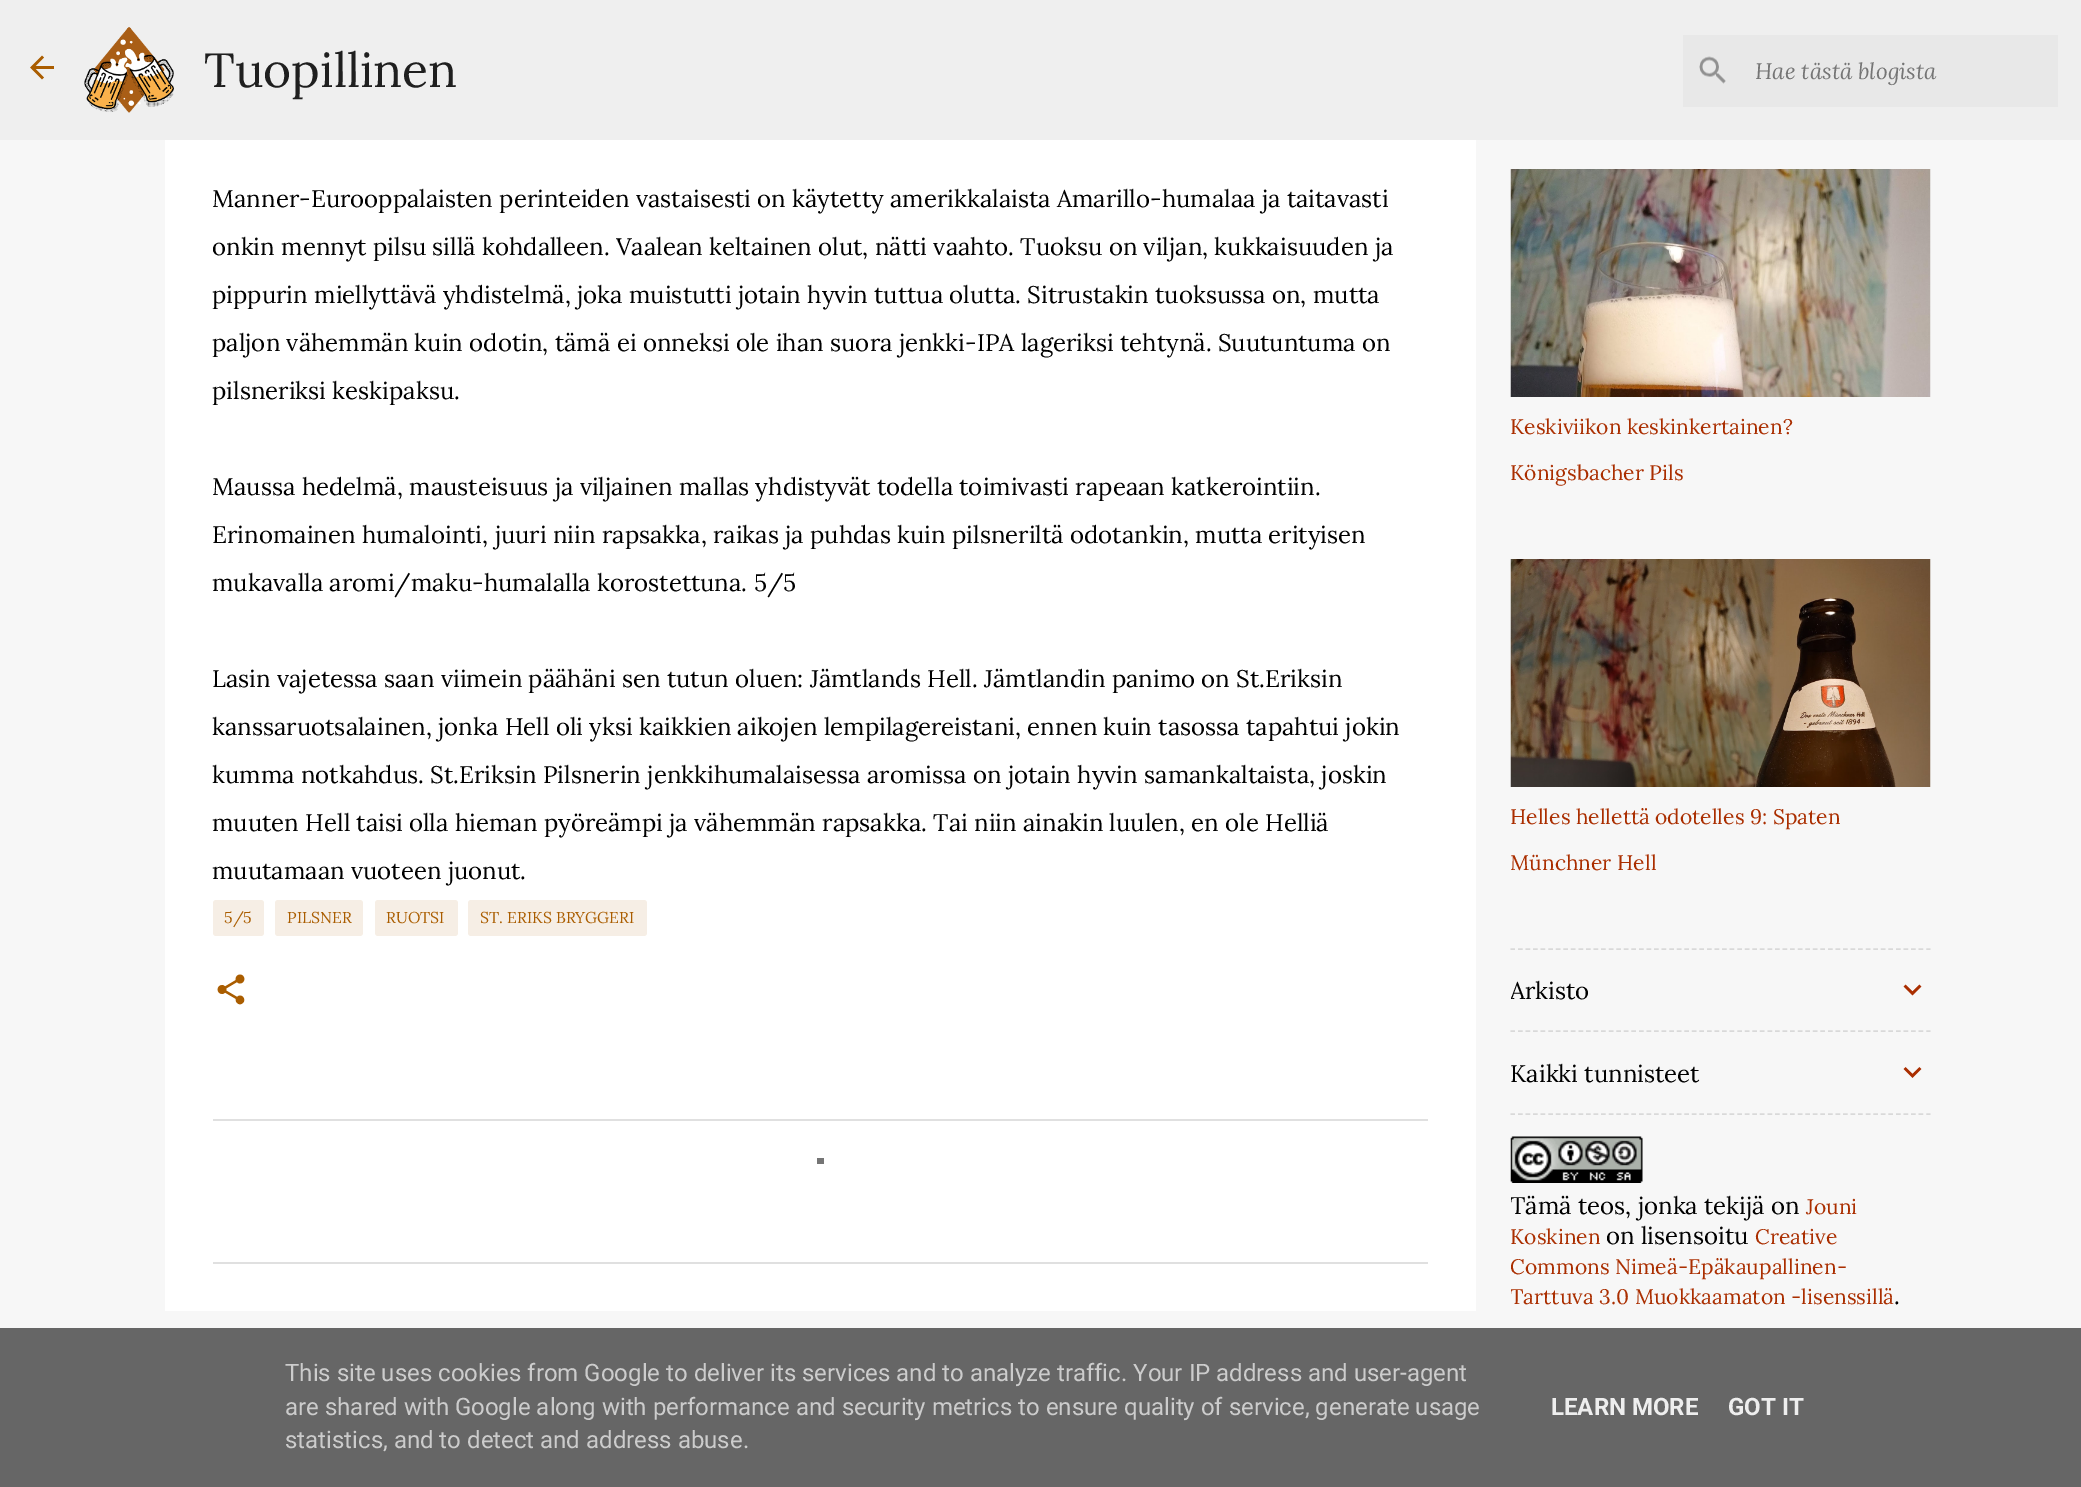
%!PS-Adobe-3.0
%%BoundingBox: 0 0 2081 1487
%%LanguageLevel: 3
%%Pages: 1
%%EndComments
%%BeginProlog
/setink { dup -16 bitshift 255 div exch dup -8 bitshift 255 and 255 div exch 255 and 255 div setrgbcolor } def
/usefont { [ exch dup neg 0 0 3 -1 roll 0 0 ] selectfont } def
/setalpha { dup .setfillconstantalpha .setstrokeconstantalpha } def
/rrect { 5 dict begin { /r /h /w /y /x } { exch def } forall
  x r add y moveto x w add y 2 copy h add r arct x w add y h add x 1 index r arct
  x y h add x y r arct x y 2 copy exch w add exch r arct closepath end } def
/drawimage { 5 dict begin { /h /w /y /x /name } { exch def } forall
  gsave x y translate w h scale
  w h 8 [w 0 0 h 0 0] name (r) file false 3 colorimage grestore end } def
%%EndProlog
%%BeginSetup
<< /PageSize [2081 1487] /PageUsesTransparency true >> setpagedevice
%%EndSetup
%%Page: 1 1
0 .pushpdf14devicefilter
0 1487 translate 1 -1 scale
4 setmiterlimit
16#F7F7F7 setink
0 0 2081 1487 rectfill
16#EFEFEF setink
0 0 2081 140 rectfill
(img1.raw) 30 55 24 25 drawimage
(img2.raw) 84 27 90 86 drawimage
/Lora-Regular 48 usefont
16#1F1F1F setink
204 87 moveto (Tuopillinen) show
16#E8E8E8 setink
1683 35 375 72 rectfill
(img3.raw) 1699 56 27 28 drawimage
/Lora-Italic 22.5 usefont
16#757575 setink
1755 79 moveto (Hae tästä blogista) show
[
    [165 140 1311 1171 16#FFFFFF]
    [213 1119 1215 2 16#E0E0E0]
    [213 1262 1215 2 16#E0E0E0]
] { aload pop setink rectfill } forall
/Lora-Regular 24 usefont
16#000000 setink
[
    [(Manner-Eurooppalaisten perinteiden vastaisesti on käytetty amerikkalaista Amarillo-humalaa ja taitavasti) 212 207]
    [(onkin mennyt pilsu sillä kohdalleen. Vaalean keltainen olut, nätti vaahto. Tuoksu on viljan, kukkaisuuden ja) 212 255]
    [(pippurin miellyttävä yhdistelmä, joka muistutti jotain hyvin tuttua olutta. Sitrustakin tuoksussa on, mutta) 212 303]
    [(paljon vähemmän kuin odotin, tämä ei onneksi ole ihan suora jenkki-IPA lageriksi tehtynä. Suutuntuma on) 212 351]
    [(pilsneriksi keskipaksu.) 212 399]
    [(Maussa hedelmä, mausteisuus ja viljainen mallas yhdistyvät todella toimivasti rapeaan katkerointiin.) 212 495]
    [(Erinomainen humalointi, juuri niin rapsakka, raikas ja puhdas kuin pilsneriltä odotankin, mutta erityisen) 212 543]
    [(mukavalla aromi/maku-humalalla korostettuna. 5/5) 212 591]
    [(Lasin vajetessa saan viimein päähäni sen tutun oluen: Jämtlands Hell. Jämtlandin panimo on St.Eriksin) 212 687]
    [(kanssaruotsalainen, jonka Hell oli yksi kaikkien aikojen lempilagereistani, ennen kuin tasossa tapahtui jokin) 212 735]
    [(kumma notkahdus. St.Eriksin Pilsnerin jenkkihumalaisessa aromissa on jotain hyvin samankaltaista, joskin) 212 783]
    [(muuten Hell taisi olla hieman pyöreämpi ja vähemmän rapsakka. Tai niin ainakin luulen, en ole Helliä) 212 831]
    [(muutamaan vuoteen juonut.) 212 879]
] { aload pop moveto show } forall
0.1 setalpha
16#AA5D00 setink
213 900 51 36 3 rrect fill
/Lora-Regular 15.75 usefont
1 setalpha
224 923 moveto (5/5) show
0.1 setalpha
275 900 88 36 3 rrect fill
1 setalpha
287 923 moveto (PILSNER) show
0.1 setalpha
375 900 83 36 3 rrect fill
1 setalpha
386 923 moveto (RUOTSI) show
0.1 setalpha
468 900 179 36 3 rrect fill
1 setalpha
480 923 moveto (ST. ERIKS BRYGGERI) show
(img4.raw) 217 974 28 31 drawimage
(img5.raw) 1510 169 421 228 drawimage
/Lora-Regular 21 usefont
16#AA2E00 setink
1510 434 moveto (Keskiviikon keskinkertainen?) show
1510 480 moveto (Königsbacher Pils) show
(img6.raw) 1510 559 421 228 drawimage
1510 824 moveto (Helles hellettä odotelles 9: Spaten) show
1510 870 moveto (Münchner Hell) show
16#D9D9D9 setink
1.5 setlinewidth
[4.5 3.06] 0 setdash
1510.5 949 moveto 1930.5 949 lineto stroke
gsave
1511 975 384 30 rectclip
/Lora-Regular 24 usefont
16#000000 setink
1510 999 moveto (Arkisto) show
grestore
(img7.raw) 1903 984 19 12 drawimage
1510.5 1031 moveto 1930.5 1031 lineto stroke
/Lora-Regular 24 usefont
16#000000 setink
1510 1082 moveto (Kaikki tunnisteet) show
(img8.raw) 1903 1067 19 11 drawimage
16#D9D9D9 setink
1510.5 1114 moveto 1930.5 1114 lineto stroke
(img9.raw) 1510 1136 133 47 drawimage
gsave
1511 0 420 1332 rectclip
16#000000 setink
1510 1214 moveto (Tämä teos, jonka tekijä on) show
grestore
/Lora-Regular 21 usefont
16#AA2E00 setink
1806 1214 moveto (Jouni) show
1510 1244 moveto (Koskinen) show
/Lora-Regular 24 usefont
16#000000 setink
1606 1244 moveto (on lisensoitu) show
/Lora-Regular 21 usefont
16#AA2E00 setink
1755 1244 moveto (Creative) show
gsave
1511 0 420 1332 rectclip
1510 1274 moveto (Commons Nimeä-Epäkaupallinen-) show
1510 1304 moveto (Tarttuva 3.0 Muokkaamaton) show
grestore
1791 1304 moveto (-lisenssillä) show
/Lora-Regular 24 usefont
16#000000 setink
1894 1304 moveto (.) show
16#757575 setink
817 1158 7 6 rectfill
16#666666 setink
0 1328 2081 159 rectfill
/Roboto-Regular 24 usefont
16#CCCCCC setink
[
    [(This site uses cookies from Google to deliver its services and to analyze traffic. Your IP address and user-agent) 285 1381]
    [(are shared with Google along with performance and security metrics to ensure quality of service, generate usage) 285 1415]
    [(statistics, and to detect and address abuse.) 285 1448]
] { aload pop moveto show } forall
/Roboto-Bold 24 usefont
16#EEEEEE setink
1551 1415 moveto (LEARN MORE) show
1728 1415 moveto (GOT IT) show
.poppdf14devicefilter showpage
%%EOF
